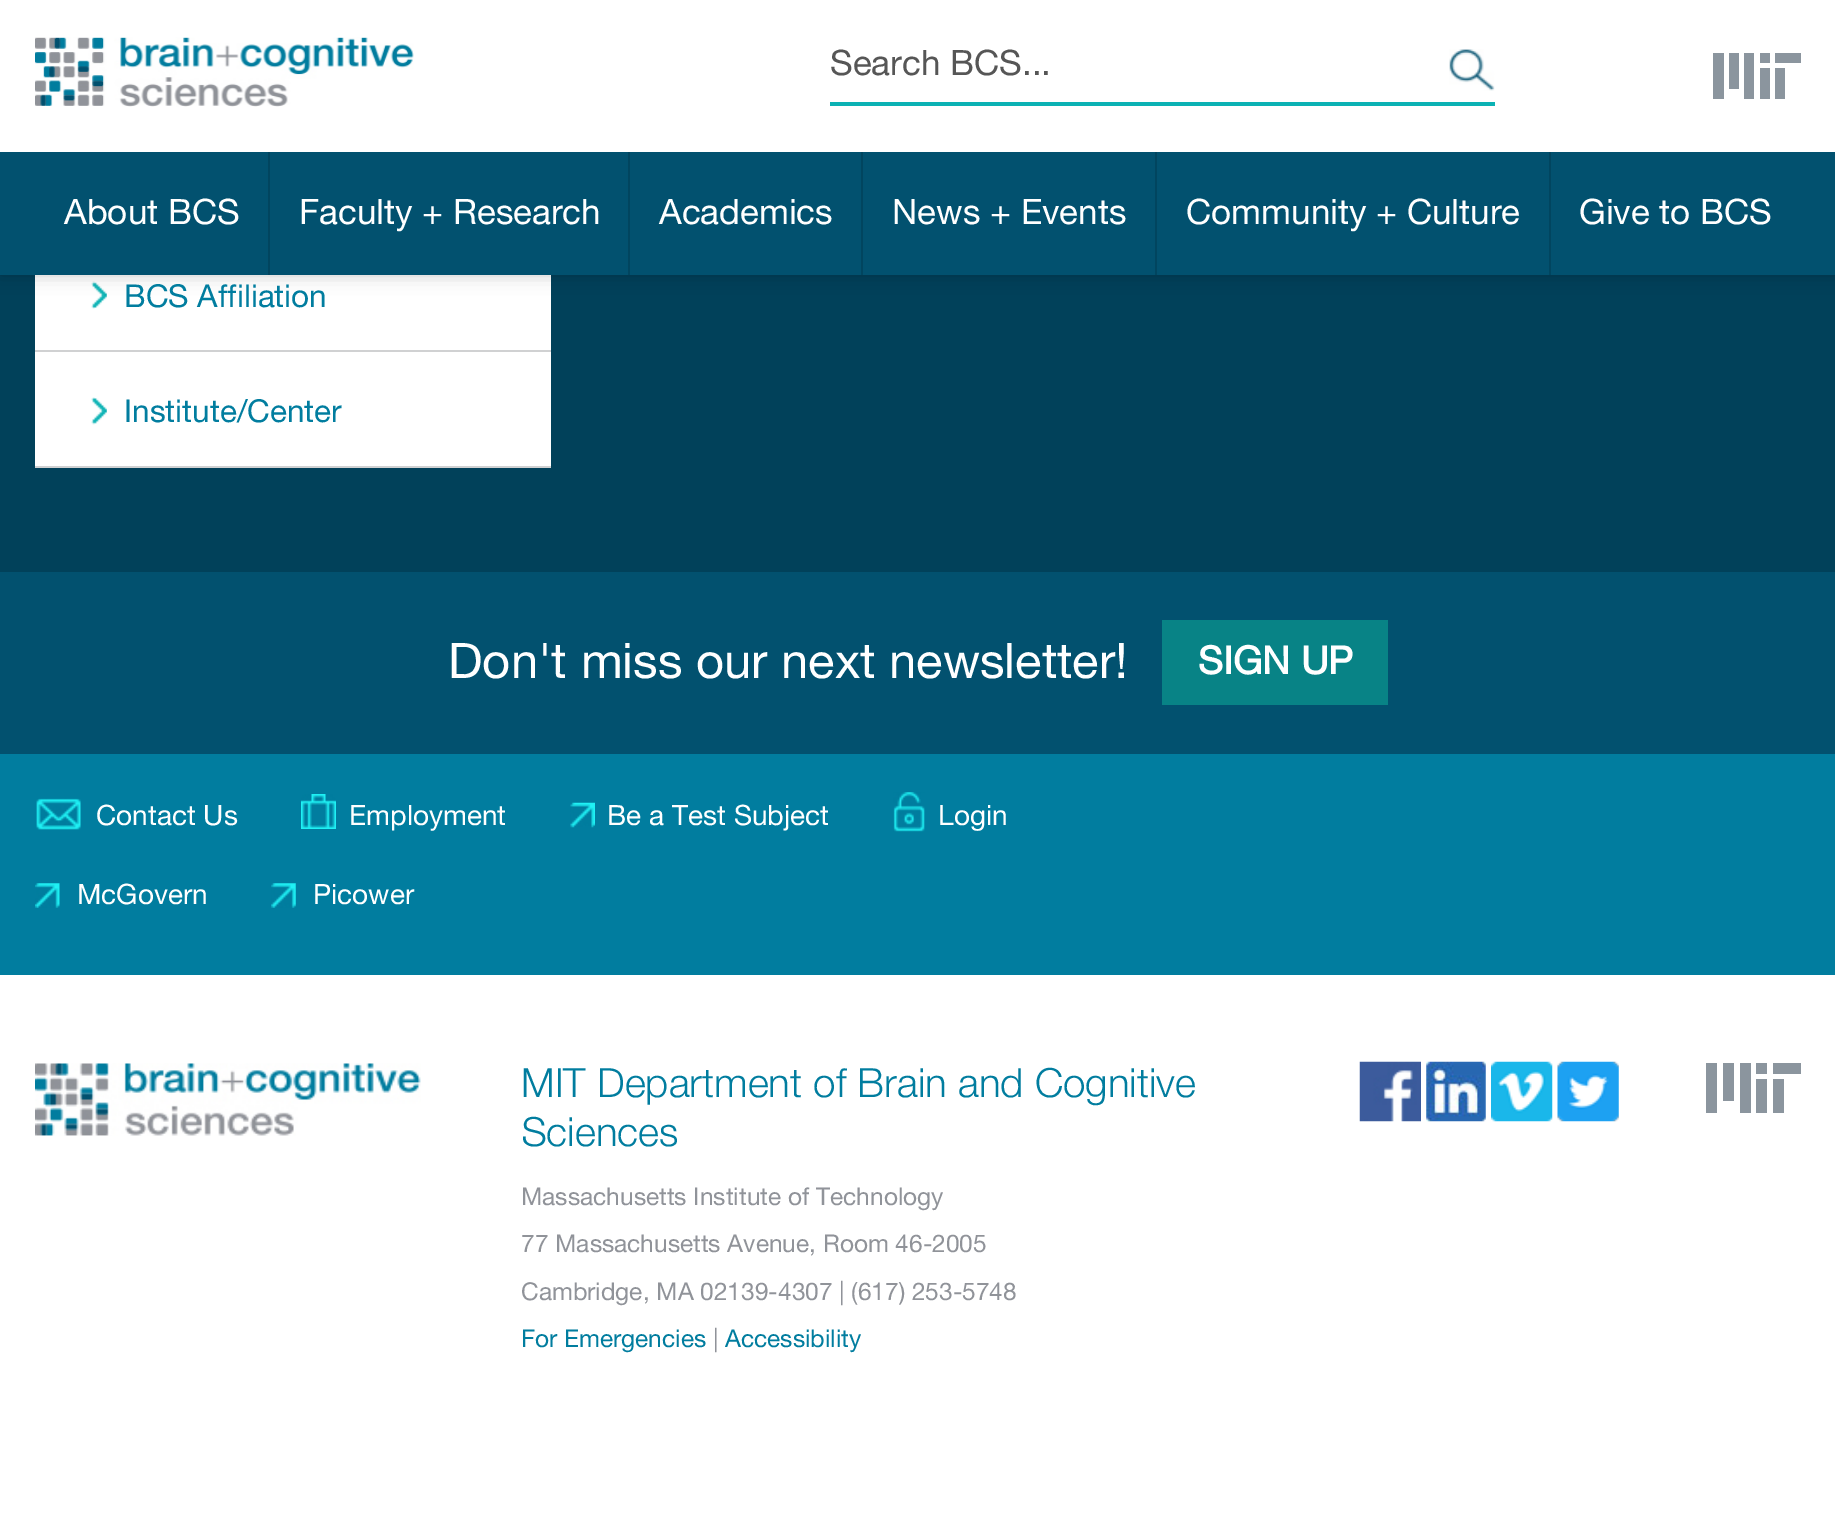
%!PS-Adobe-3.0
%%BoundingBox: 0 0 1835 1532
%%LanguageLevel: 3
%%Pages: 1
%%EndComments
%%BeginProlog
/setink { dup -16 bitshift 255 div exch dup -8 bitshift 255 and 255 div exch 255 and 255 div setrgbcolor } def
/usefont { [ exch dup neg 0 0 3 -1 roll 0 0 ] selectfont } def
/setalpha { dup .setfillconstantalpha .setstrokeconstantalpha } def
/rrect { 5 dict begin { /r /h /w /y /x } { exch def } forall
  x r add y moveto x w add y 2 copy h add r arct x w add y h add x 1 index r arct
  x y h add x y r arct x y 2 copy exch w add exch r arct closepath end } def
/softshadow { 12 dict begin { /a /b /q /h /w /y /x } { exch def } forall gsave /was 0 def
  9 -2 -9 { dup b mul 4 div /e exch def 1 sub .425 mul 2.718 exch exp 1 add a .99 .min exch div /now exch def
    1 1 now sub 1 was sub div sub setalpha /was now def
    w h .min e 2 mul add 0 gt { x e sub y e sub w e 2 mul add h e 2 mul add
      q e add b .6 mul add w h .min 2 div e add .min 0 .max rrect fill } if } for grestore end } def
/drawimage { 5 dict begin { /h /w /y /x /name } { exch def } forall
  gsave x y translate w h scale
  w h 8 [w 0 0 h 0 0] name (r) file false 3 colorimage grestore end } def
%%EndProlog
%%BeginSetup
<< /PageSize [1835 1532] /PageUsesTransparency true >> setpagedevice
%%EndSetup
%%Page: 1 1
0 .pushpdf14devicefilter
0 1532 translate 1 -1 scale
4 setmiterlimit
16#FFFFFF setink
0 0 1835 1532 rectfill
16#01415A setink
0 275 1835 297 rectfill
16#FFFFFF setink
35 275 516 75 rectfill
(img3.raw) 91 281 16 28 drawimage
16#000000 setink
0 0 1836 275 0 9 0.2 softshadow
16#FFFFFF setink
0 0 1835 152 rectfill
(img1.raw) 35 37 379 70 drawimage
16#0BB2B4 setink
830 102 665 4 rectfill
/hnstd-Regular 35 usefont
16#565656 setink
830 75 moveto (Search BCS...) show
(img2.raw) 1449 49 46 42 drawimage
16#8B959E setink
1760 99 moveto 1770 99 lineto 1770 68 lineto 1760 68 lineto closepath 1775 63 moveto 1801 63 lineto 1801 53 lineto 1775 53 lineto closepath 1760 53 moveto 1770 53 lineto 1770 63 lineto 1760 63 lineto closepath 1744 99 moveto 1754 99 lineto 1754 53 lineto 1744 53 lineto closepath 1729 89 moveto 1739 89 lineto 1739 53 lineto 1729 53 lineto closepath 1713 99 moveto 1724 99 lineto 1724 53 lineto 1713 53 lineto closepath 1775 99 moveto 1785 99 lineto 1785 68 lineto 1775 68 lineto closepath fill
16#02516F setink
0 152 1835 123 rectfill
16#01455F setink
268 152 2 123 rectfill
16#FFFFFF setink
64 224 moveto (About BCS) show
16#01455F setink
628 152 2 123 rectfill
16#FFFFFF setink
299 224 moveto (Faculty + Research) show
16#01455F setink
861 152 2 123 rectfill
16#FFFFFF setink
659 224 moveto (Academics) show
16#01455F setink
1155 152 2 123 rectfill
16#FFFFFF setink
892 224 moveto (News + Events) show
16#01455F setink
1549 152 2 123 rectfill
16#FFFFFF setink
1186 224 moveto (Community + Culture) show
1579 224 moveto (Give to BCS) show
16#D0D1D2 setink
35 350 516 2 rectfill
/hnstd-Regular 31.5 usefont
16#017D9F setink
124 307 moveto (BCS Affiliation) show
16#FFFFFF setink
35 352 516 114 rectfill
16#D0D1D2 setink
35 466 516 2 rectfill
(img4.raw) 91 397 16 28 drawimage
16#017D9F setink
124 422 moveto (Institute/Center) show
16#02516F setink
0 572 1835 182 rectfill
/hnstd-Regular 49 usefont
16#FFFFFF setink
448 678 moveto (Don't miss our next newsletter!) show
16#088386 setink
1162 620 226 85 rectfill
/hnstd-Bold 38.5 usefont
16#FFFFFF setink
1198 674 moveto (SIGN UP) show
16#017D9F setink
0 754 1835 221 rectfill
(img5.raw) 36 798 45 32 drawimage
/hnstd-Regular 28 usefont
16#FFFFFF setink
96 825 moveto (Contact Us) show
(img6.raw) 301 794 35 35 drawimage
349 825 moveto (Employment) show
(img7.raw) 570 802 25 26 drawimage
607 825 moveto (Be a Test Subject) show
(img8.raw) 893 792 32 40 drawimage
938 825 moveto (Login) show
(img9.raw) 35 883 25 25 drawimage
77 904 moveto (McGovern) show
(img10.raw) 271 883 25 25 drawimage
313 904 moveto (Picower) show
(img11.raw) 35 1063 386 73 drawimage
/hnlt-Light 40.25 usefont
16#017D9F setink
521 1097 moveto (MIT Department of Brain and Cognitive) show
521 1146 moveto (Sciences) show
/hnstd-Regular 24.5 usefont
16#909399 setink
[
    [(Massachusetts Institute of Technology) 521 1205]
    [(77 Massachusetts Avenue, Room 46-2005) 521 1252]
    [(Cambridge, MA 02139-4307 | \(617\) 253-5748) 521 1300]
] { aload pop moveto show } forall
16#017D9F setink
521 1347 moveto (For Emergencies) show
16#909399 setink
713 1347 moveto (|) show
16#017D9F setink
725 1347 moveto (Accessibility) show
(img12.raw) 1359 1061 62 61 drawimage
(img13.raw) 1426 1061 60 61 drawimage
(img14.raw) 1491 1061 62 61 drawimage
(img15.raw) 1557 1061 62 61 drawimage
16#8B959E setink
1756 1113 moveto 1767 1113 lineto 1767 1079 lineto 1756 1079 lineto closepath 1773 1074 moveto 1801 1074 lineto 1801 1063 lineto 1773 1063 lineto closepath 1756 1063 moveto 1767 1063 lineto 1767 1074 lineto 1756 1074 lineto closepath 1740 1113 moveto 1751 1113 lineto 1751 1063 lineto 1740 1063 lineto closepath 1723 1101 moveto 1734 1101 lineto 1734 1063 lineto 1723 1063 lineto closepath 1706 1113 moveto 1717 1113 lineto 1717 1063 lineto 1706 1063 lineto closepath 1773 1113 moveto 1784 1113 lineto 1784 1079 lineto 1773 1079 lineto closepath fill
.poppdf14devicefilter showpage
%%EOF
